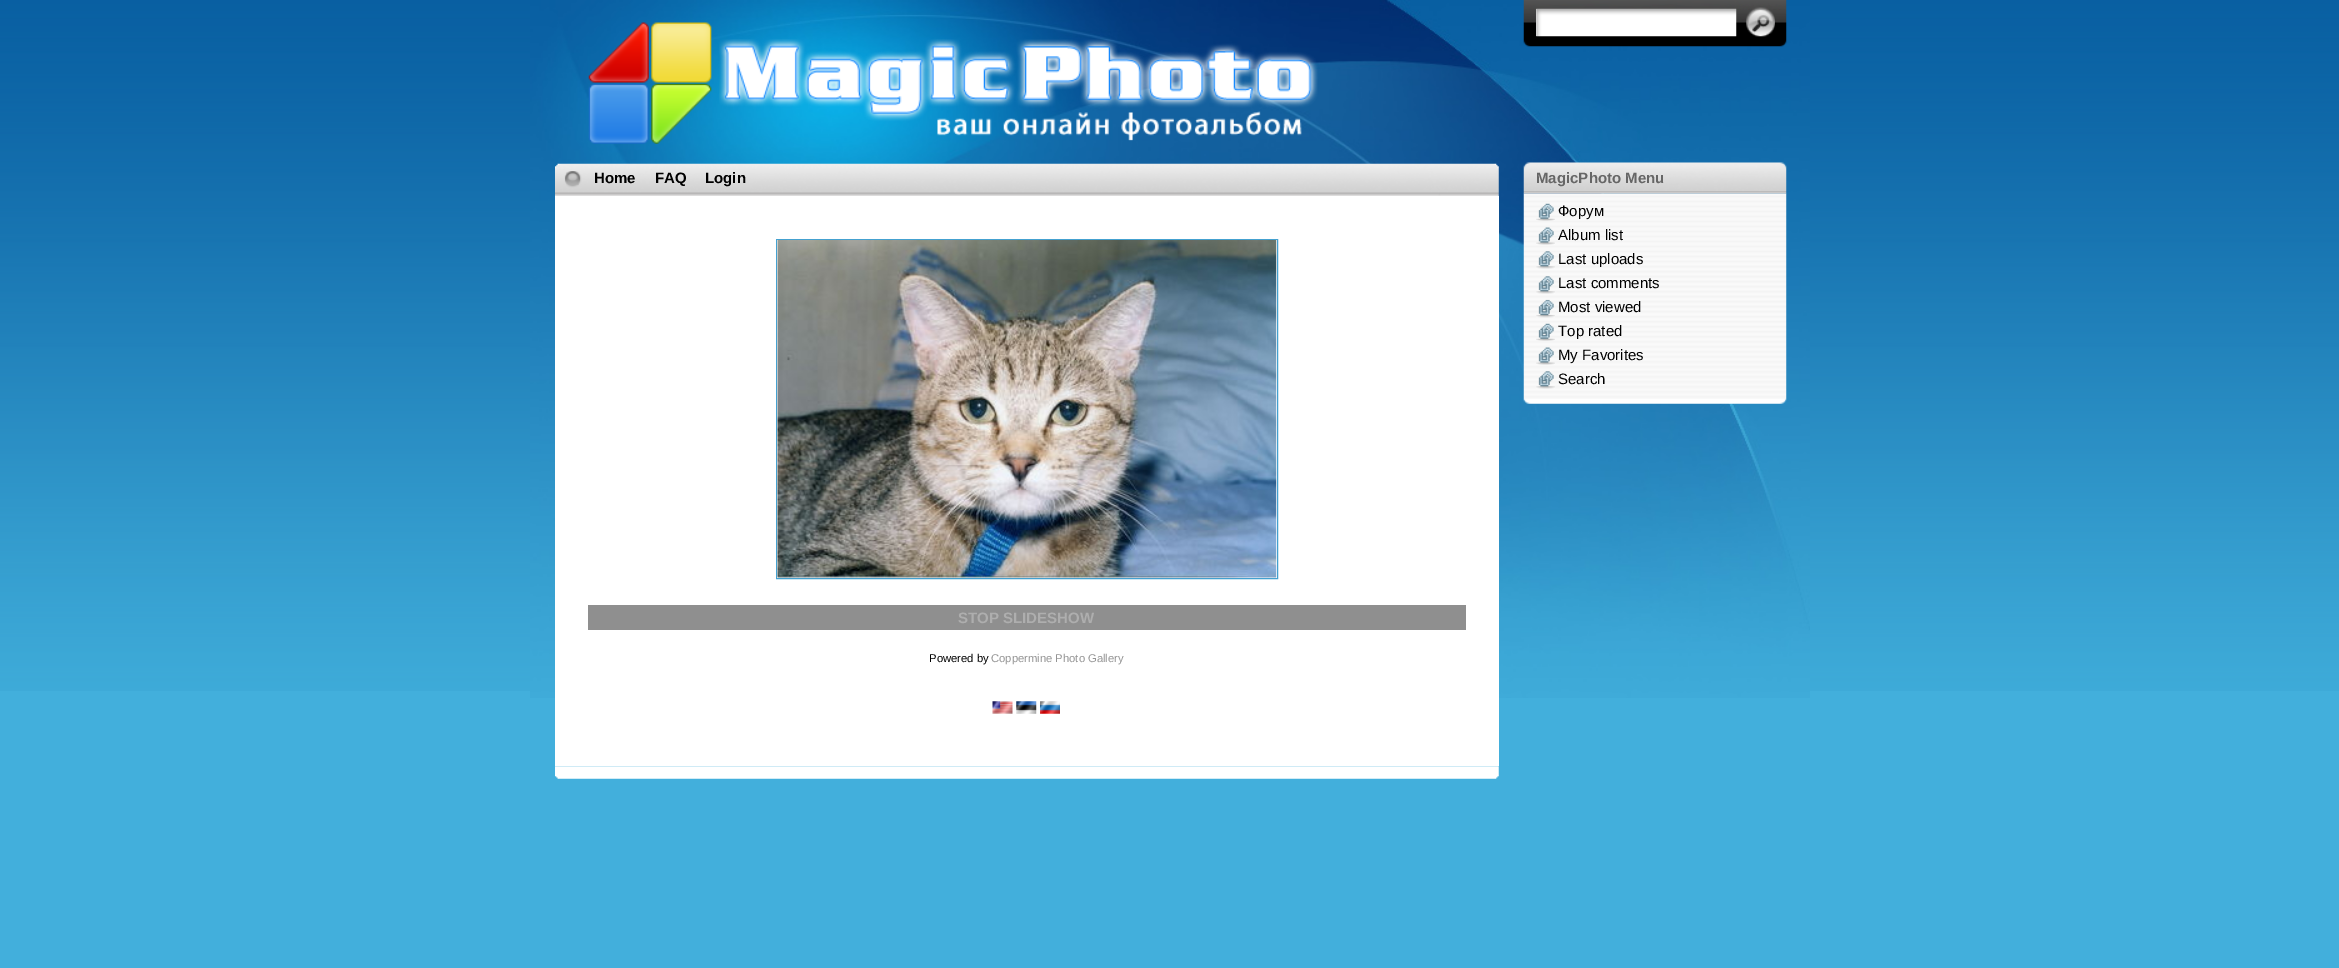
%!PS-Adobe-3.0
%%BoundingBox: 0 0 2339 968
%%LanguageLevel: 3
%%Pages: 1
%%EndComments
%%BeginProlog
/setink { dup -16 bitshift 255 div exch dup -8 bitshift 255 and 255 div exch 255 and 255 div setrgbcolor } def
/usefont { [ exch dup neg 0 0 3 -1 roll 0 0 ] selectfont } def
/drawimage { 5 dict begin { /h /w /y /x /name } { exch def } forall
  gsave x y translate w h scale
  w h 8 [w 0 0 h 0 0] name (r) file false 3 colorimage grestore end } def
%%EndProlog
%%BeginSetup
<< /PageSize [2339 968] >> setpagedevice
%%EndSetup
%%Page: 1 1
0 968 translate 1 -1 scale
4 setmiterlimit
16#42AFDC setink
0 0 2339 968 rectfill
(img1.raw) 0 0 2339 691 drawimage
(img2.raw) 530 0 1280 698 drawimage
(img3.raw) 588 22 124 122 drawimage
(img4.raw) 719 39 599 102 drawimage
(img5.raw) 1523 0 264 47 drawimage
(img6.raw) 1536 8 201 29 drawimage
(img7.raw) 1746 7 29 30 drawimage
(img8.raw) 555 163 944 33 drawimage
/LiberationSans-Bold 15 usefont
16#000000 setink
[
    [(Home) 594 183]
    [(FAQ) 655 183]
    [(Login) 705 183]
] { aload pop moveto show } forall
16#FFFFFF setink
555 196 944 570 rectfill
16#44A1D0 setink
776.5 239.5 501 339 rectstroke
(img9.raw) 777 240 500 338 drawimage
16#8F8F8F setink
588 605 878 25 rectfill
16#AEAEAE setink
958 623 moveto (STOP SLIDESHOW) show
/LiberationSans-Regular 11.25 usefont
16#000000 setink
929 662 moveto (Powered by) show
16#949494 setink
991 662 moveto (Coppermine Photo Gallery) show
(img10.raw) 992 701 21 13 drawimage
(img11.raw) 1016 701 21 13 drawimage
(img12.raw) 1040 701 20 13 drawimage
(img13.raw) 555 766 944 13 drawimage
(img15.raw) 1523 193 264 211 drawimage
(img14.raw) 1523 162 264 32 drawimage
/LiberationSans-Bold 15 usefont
16#666666 setink
1536 183 moveto (MagicPhoto Menu) show
(img16.raw) 1536 203 19 18 drawimage
/LiberationSans-Regular 15 usefont
16#000000 setink
1558 216 moveto (Форум) show
(img17.raw) 1536 227 19 18 drawimage
1558 240 moveto (Album list) show
(img18.raw) 1536 251 19 18 drawimage
1558 264 moveto (Last uploads) show
(img19.raw) 1536 276 19 18 drawimage
1558 288 moveto (Last comments) show
(img20.raw) 1536 299 19 19 drawimage
1558 312 moveto (Most viewed) show
(img21.raw) 1536 323 19 18 drawimage
1558 336 moveto (Top rated) show
(img22.raw) 1536 347 19 18 drawimage
1558 360 moveto (My Favorites) show
(img23.raw) 1536 371 19 18 drawimage
1558 384 moveto (Search) show
showpage
%%EOF
